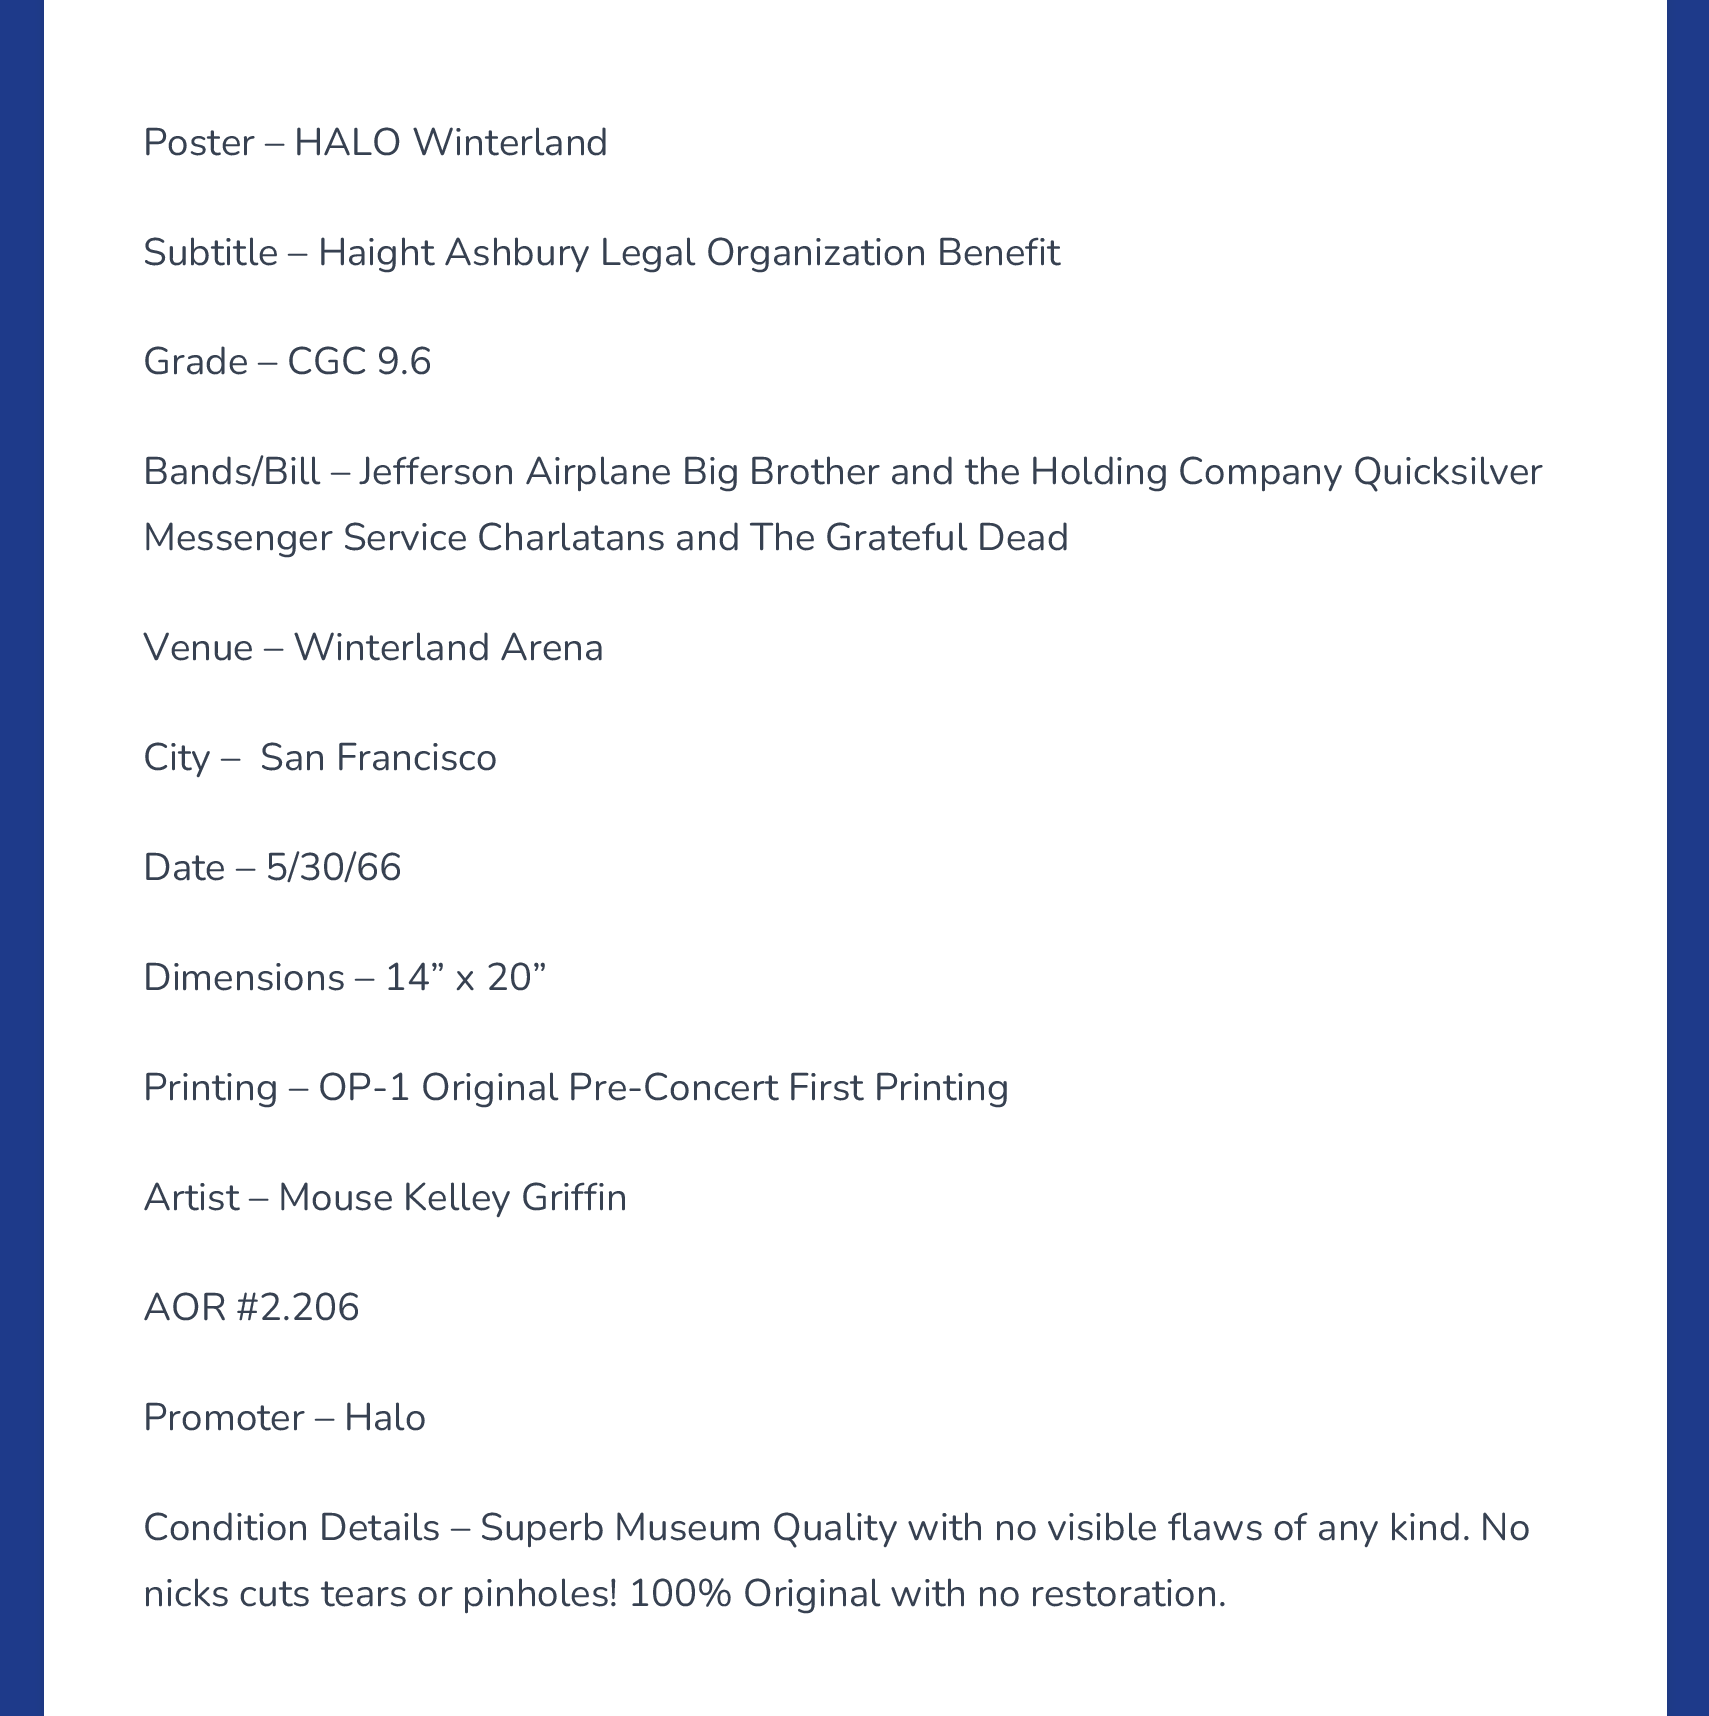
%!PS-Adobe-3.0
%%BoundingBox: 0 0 1709 1716
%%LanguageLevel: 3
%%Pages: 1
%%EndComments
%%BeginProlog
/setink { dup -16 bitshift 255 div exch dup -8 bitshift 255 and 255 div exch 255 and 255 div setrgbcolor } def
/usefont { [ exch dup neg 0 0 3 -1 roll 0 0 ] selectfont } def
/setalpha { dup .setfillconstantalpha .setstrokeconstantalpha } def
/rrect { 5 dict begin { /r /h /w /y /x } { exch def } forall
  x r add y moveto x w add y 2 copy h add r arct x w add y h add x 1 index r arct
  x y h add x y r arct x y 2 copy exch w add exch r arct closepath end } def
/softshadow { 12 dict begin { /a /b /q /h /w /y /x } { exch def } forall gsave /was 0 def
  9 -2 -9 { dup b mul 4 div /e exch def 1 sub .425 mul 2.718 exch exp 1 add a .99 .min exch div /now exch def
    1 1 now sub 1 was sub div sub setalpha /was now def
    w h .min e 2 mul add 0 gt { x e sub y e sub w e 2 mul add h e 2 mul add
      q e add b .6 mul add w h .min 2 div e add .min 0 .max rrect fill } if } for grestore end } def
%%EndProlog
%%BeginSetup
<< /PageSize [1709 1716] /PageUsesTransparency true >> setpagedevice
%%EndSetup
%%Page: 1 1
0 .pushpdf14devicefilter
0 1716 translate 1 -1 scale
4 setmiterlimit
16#1E3A8A setink
0 0 1709 1716 rectfill
16#000000 setink
44 -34 1623 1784 22 4 0.1 softshadow
16#FFFFFF setink
44 0 1623 1716 rectfill
/Nunito-Regular 38.5 usefont
16#374151 setink
[
    [(Poster – HALO Winterland) 143 155]
    [(Subtitle – Haight Ashbury Legal Organization Benefit) 143 265]
    [(Grade – CGC 9.6) 143 374]
    [(Bands/Bill – Jefferson Airplane Big Brother and the Holding Company Quicksilver) 143 484]
    [(Messenger Service Charlatans and The Grateful Dead) 143 550]
    [(Venue – Winterland Arena) 143 660]
    [(City –  San Francisco) 143 770]
    [(Date – 5/30/66) 143 880]
    [(Dimensions – 14” x 20”) 143 990]
    [(Printing – OP-1 Original Pre-Concert First Printing) 143 1100]
    [(Artist – Mouse Kelley Griffin) 143 1210]
    [(AOR #2.206) 143 1320]
    [(Promoter – Halo) 143 1430]
    [(Condition Details – Superb Museum Quality with no visible flaws of any kind. No) 143 1540]
    [(nicks cuts tears or pinholes! 100% Original with no restoration.) 143 1606]
] { aload pop moveto show } forall
.poppdf14devicefilter showpage
%%EOF
